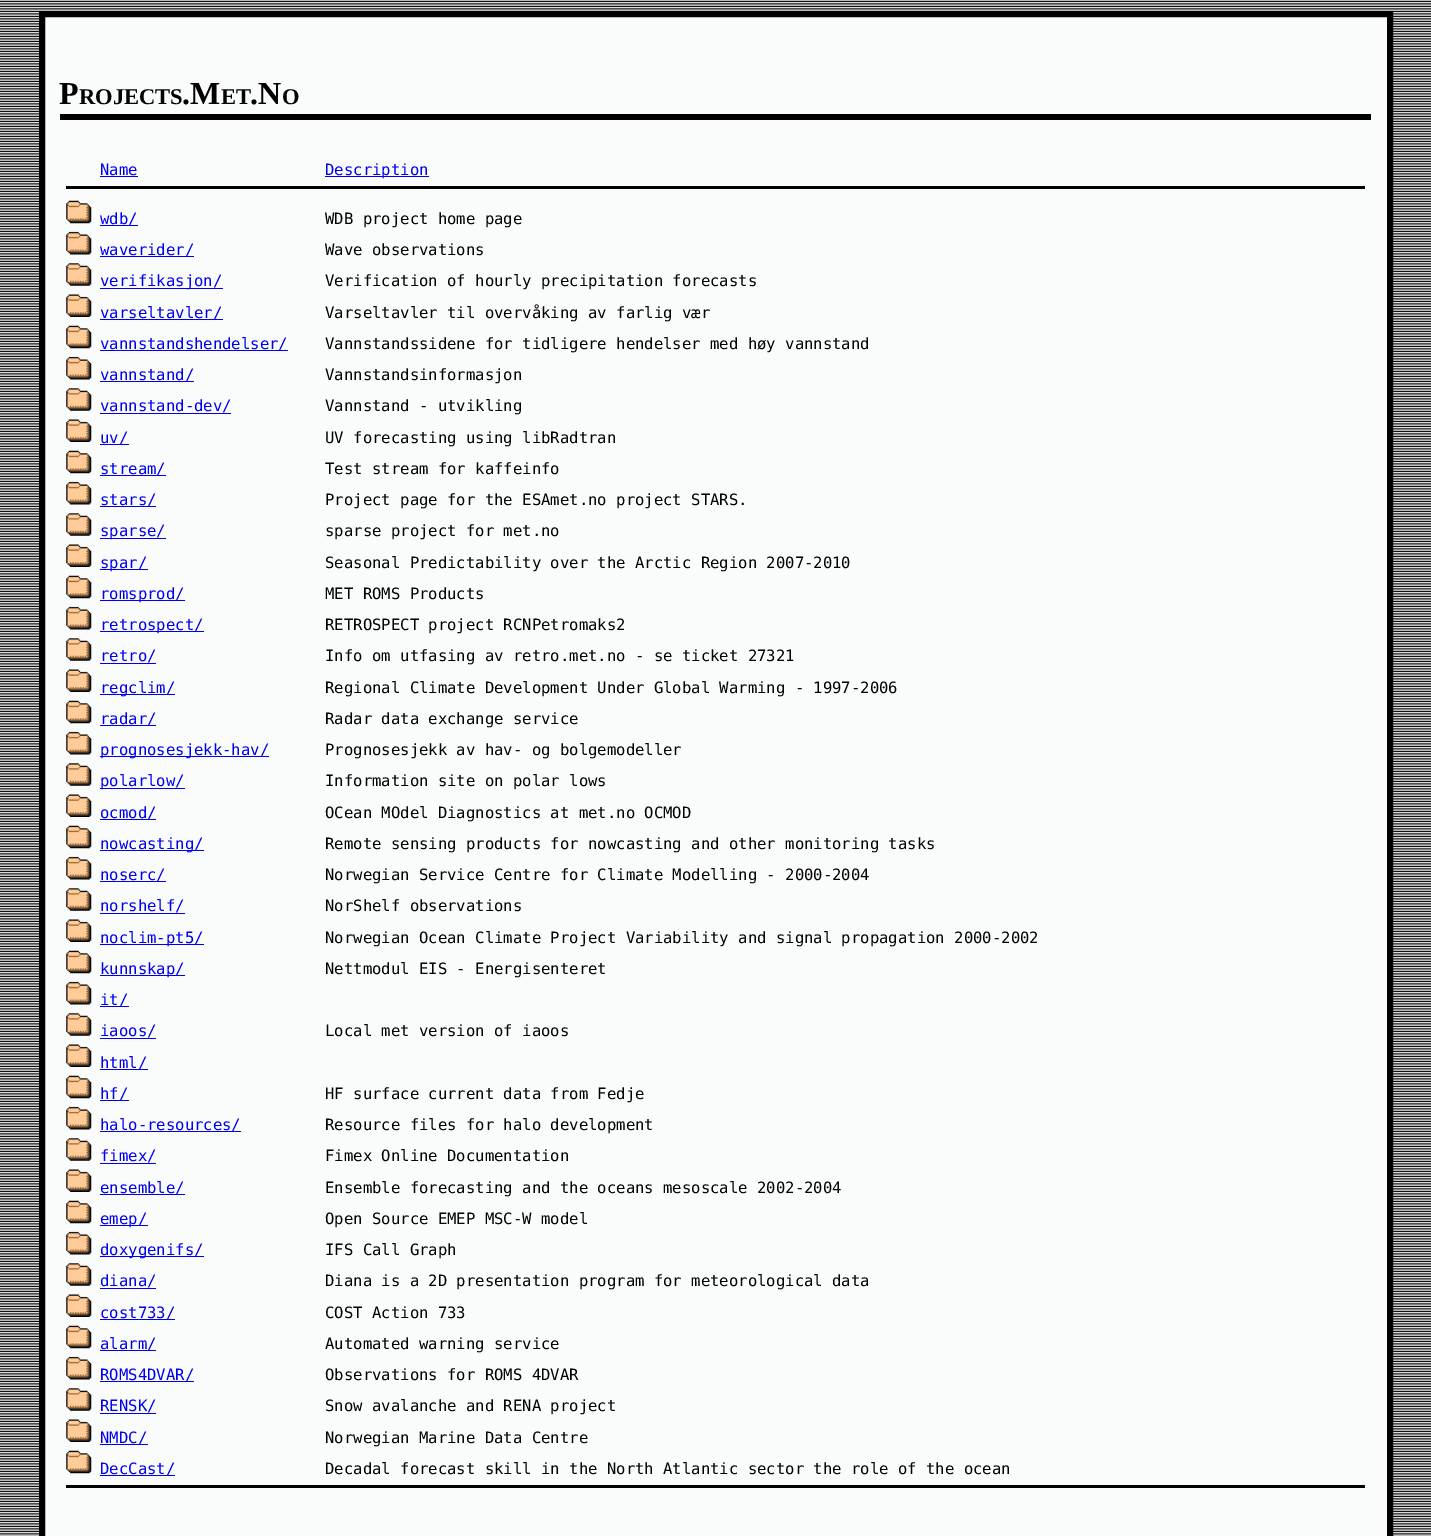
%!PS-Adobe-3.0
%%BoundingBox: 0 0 1431 1536
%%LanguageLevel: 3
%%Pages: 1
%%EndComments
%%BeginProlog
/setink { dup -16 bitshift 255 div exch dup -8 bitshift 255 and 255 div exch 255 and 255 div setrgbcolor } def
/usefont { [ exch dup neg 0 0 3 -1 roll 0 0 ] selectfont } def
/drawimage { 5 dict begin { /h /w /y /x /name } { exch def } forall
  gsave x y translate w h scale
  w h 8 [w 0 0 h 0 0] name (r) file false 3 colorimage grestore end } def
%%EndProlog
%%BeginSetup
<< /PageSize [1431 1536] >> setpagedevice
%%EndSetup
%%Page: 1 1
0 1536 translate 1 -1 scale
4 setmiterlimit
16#FAFBFB setink
0 0 1431 1536 rectfill
(img1.raw) 0 0 1431 1536 drawimage
42 14 moveto 1390 14 lineto 1390 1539 lineto 42 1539 lineto closepath gsave fill grestore
16#000000 setink
6 setlinewidth
stroke
60 114 1311 6 rectfill
/LiberationSerif-Bold 32 usefont
59 104 moveto (P) show
/LiberationSerif-Bold 22.5 usefont
79 104 moveto (ROJECTS) show
/LiberationSerif-Bold 32 usefont
182 104 moveto (.M) show
/LiberationSerif-Bold 22.5 usefont
221 104 moveto (ET) show
/LiberationSerif-Bold 32 usefont
250 104 moveto (.N) show
/LiberationSerif-Bold 22.5 usefont
282 104 moveto (O) show
/DejaVuSansMono-Regular 15.6 usefont
16#0000EE setink
100 175 moveto (Name) show
100 176 38 1 rectfill
325 176 104 1 rectfill
325 175 moveto (Description) show
16#000000 setink
66 186 1299 3 rectfill
(img2.raw) 66 200 26 24 drawimage
16#0000EE setink
100 225 38 1 rectfill
100 224 moveto (wdb/) show
16#000000 setink
325 224 moveto (WDB project home page) show
(img3.raw) 66 231 26 24 drawimage
16#0000EE setink
100 256 94 1 rectfill
100 255 moveto (waverider/) show
16#000000 setink
325 255 moveto (Wave observations) show
(img4.raw) 66 263 26 23 drawimage
16#0000EE setink
100 288 123 1 rectfill
100 286 moveto (verifikasjon/) show
16#000000 setink
325 286 moveto (Verification of hourly precipitation forecasts) show
(img5.raw) 66 294 26 23 drawimage
16#0000EE setink
100 319 123 1 rectfill
100 318 moveto (varseltavler/) show
16#000000 setink
325 318 moveto (Varseltavler til overvåking av farlig vær) show
(img2.raw) 66 325 26 24 drawimage
16#0000EE setink
100 350 188 1 rectfill
100 349 moveto (vannstandshendelser/) show
16#000000 setink
325 349 moveto (Vannstandssidene for tidligere hendelser med høy vannstand) show
(img3.raw) 66 356 26 24 drawimage
16#0000EE setink
100 381 94 1 rectfill
100 380 moveto (vannstand/) show
16#000000 setink
325 380 moveto (Vannstandsinformasjon) show
(img6.raw) 66 388 26 23 drawimage
16#0000EE setink
100 411 moveto (vannstand-dev/) show
100 413 131 1 rectfill
16#000000 setink
325 411 moveto (Vannstand - utvikling) show
(img5.raw) 66 419 26 23 drawimage
16#0000EE setink
100 444 29 1 rectfill
100 443 moveto (uv/) show
16#000000 setink
325 443 moveto (UV forecasting using libRadtran) show
(img2.raw) 66 450 26 24 drawimage
16#0000EE setink
100 475 66 1 rectfill
100 474 moveto (stream/) show
16#000000 setink
325 474 moveto (Test stream for kaffeinfo) show
(img3.raw) 66 481 26 24 drawimage
16#0000EE setink
100 506 56 1 rectfill
100 505 moveto (stars/) show
16#000000 setink
325 505 moveto (Project page for the ESAmet.no project STARS.) show
(img6.raw) 66 513 26 23 drawimage
16#0000EE setink
100 538 66 1 rectfill
100 536 moveto (sparse/) show
16#000000 setink
325 536 moveto (sparse project for met.no) show
(img5.raw) 66 544 26 23 drawimage
16#0000EE setink
100 569 48 1 rectfill
100 568 moveto (spar/) show
16#000000 setink
325 568 moveto (Seasonal Predictability over the Arctic Region 2007-2010) show
(img2.raw) 66 575 26 24 drawimage
16#0000EE setink
100 600 85 1 rectfill
100 599 moveto (romsprod/) show
16#000000 setink
325 599 moveto (MET ROMS Products) show
(img3.raw) 66 606 26 24 drawimage
16#0000EE setink
100 631 104 1 rectfill
100 630 moveto (retrospect/) show
16#000000 setink
325 630 moveto (RETROSPECT project RCNPetromaks2) show
(img6.raw) 66 638 26 23 drawimage
16#0000EE setink
100 661 moveto (retro/) show
100 663 56 1 rectfill
16#000000 setink
325 661 moveto (Info om utfasing av retro.met.no - se ticket 27321) show
(img5.raw) 66 669 26 23 drawimage
16#0000EE setink
100 694 75 1 rectfill
100 693 moveto (regclim/) show
16#000000 setink
325 693 moveto (Regional Climate Development Under Global Warming - 1997-2006) show
(img2.raw) 66 700 26 24 drawimage
16#0000EE setink
100 725 56 1 rectfill
100 724 moveto (radar/) show
16#000000 setink
325 724 moveto (Radar data exchange service) show
(img3.raw) 66 731 26 24 drawimage
16#0000EE setink
100 756 169 1 rectfill
100 755 moveto (prognosesjekk-hav/) show
16#000000 setink
325 755 moveto (Prognosesjekk av hav- og bolgemodeller) show
(img7.raw) 66 763 26 23 drawimage
16#0000EE setink
100 788 85 1 rectfill
100 786 moveto (polarlow/) show
16#000000 setink
325 786 moveto (Information site on polar lows) show
(img5.raw) 66 794 26 23 drawimage
16#0000EE setink
100 819 56 1 rectfill
100 818 moveto (ocmod/) show
16#000000 setink
325 818 moveto (OCean MOdel Diagnostics at met.no OCMOD) show
(img2.raw) 66 825 26 24 drawimage
16#0000EE setink
100 850 104 1 rectfill
100 849 moveto (nowcasting/) show
16#000000 setink
325 849 moveto (Remote sensing products for nowcasting and other monitoring tasks) show
(img3.raw) 66 856 26 24 drawimage
16#0000EE setink
100 881 66 1 rectfill
100 880 moveto (noserc/) show
16#000000 setink
325 880 moveto (Norwegian Service Centre for Climate Modelling - 2000-2004) show
(img6.raw) 66 888 26 23 drawimage
16#0000EE setink
100 911 moveto (norshelf/) show
100 913 85 1 rectfill
16#000000 setink
325 911 moveto (NorShelf observations) show
(img5.raw) 66 919 26 23 drawimage
16#0000EE setink
100 944 104 1 rectfill
100 943 moveto (noclim-pt5/) show
16#000000 setink
325 943 moveto (Norwegian Ocean Climate Project Variability and signal propagation 2000-2002) show
(img2.raw) 66 950 26 24 drawimage
16#0000EE setink
100 975 85 1 rectfill
100 974 moveto (kunnskap/) show
16#000000 setink
325 974 moveto (Nettmodul EIS - Energisenteret) show
(img3.raw) 66 981 26 24 drawimage
16#0000EE setink
100 1006 29 1 rectfill
100 1005 moveto (it/) show
(img6.raw) 66 1013 26 23 drawimage
100 1036 moveto (iaoos/) show
100 1038 56 1 rectfill
16#000000 setink
325 1036 moveto (Local met version of iaoos) show
(img5.raw) 66 1044 26 23 drawimage
16#0000EE setink
100 1069 48 1 rectfill
100 1068 moveto (html/) show
(img2.raw) 66 1075 26 24 drawimage
100 1100 29 1 rectfill
100 1099 moveto (hf/) show
16#000000 setink
325 1099 moveto (HF surface current data from Fedje) show
(img3.raw) 66 1106 26 24 drawimage
16#0000EE setink
100 1131 141 1 rectfill
100 1130 moveto (halo-resources/) show
16#000000 setink
325 1130 moveto (Resource files for halo development) show
(img8.raw) 66 1138 26 23 drawimage
16#0000EE setink
100 1161 moveto (fimex/) show
100 1163 56 1 rectfill
16#000000 setink
325 1161 moveto (Fimex Online Documentation) show
(img5.raw) 66 1169 26 23 drawimage
16#0000EE setink
100 1194 85 1 rectfill
100 1193 moveto (ensemble/) show
16#000000 setink
325 1193 moveto (Ensemble forecasting and the oceans mesoscale 2002-2004) show
(img2.raw) 66 1200 26 24 drawimage
16#0000EE setink
100 1225 48 1 rectfill
100 1224 moveto (emep/) show
16#000000 setink
325 1224 moveto (Open Source EMEP MSC-W model) show
(img3.raw) 66 1231 26 24 drawimage
16#0000EE setink
100 1256 104 1 rectfill
100 1255 moveto (doxygenifs/) show
16#000000 setink
325 1255 moveto (IFS Call Graph) show
(img6.raw) 66 1263 26 23 drawimage
16#0000EE setink
100 1286 moveto (diana/) show
100 1288 56 1 rectfill
16#000000 setink
325 1286 moveto (Diana is a 2D presentation program for meteorological data) show
(img5.raw) 66 1294 26 23 drawimage
16#0000EE setink
100 1319 75 1 rectfill
100 1318 moveto (cost733/) show
16#000000 setink
325 1318 moveto (COST Action 733) show
(img2.raw) 66 1325 26 24 drawimage
16#0000EE setink
100 1350 56 1 rectfill
100 1349 moveto (alarm/) show
16#000000 setink
325 1349 moveto (Automated warning service) show
(img3.raw) 66 1356 26 24 drawimage
16#0000EE setink
100 1381 94 1 rectfill
100 1380 moveto (ROMS4DVAR/) show
16#000000 setink
325 1380 moveto (Observations for ROMS 4DVAR) show
(img6.raw) 66 1388 26 23 drawimage
16#0000EE setink
100 1411 moveto (RENSK/) show
100 1413 56 1 rectfill
16#000000 setink
325 1411 moveto (Snow avalanche and RENA project) show
(img5.raw) 66 1419 26 23 drawimage
16#0000EE setink
100 1444 48 1 rectfill
100 1443 moveto (NMDC/) show
16#000000 setink
325 1443 moveto (Norwegian Marine Data Centre) show
(img2.raw) 66 1450 26 24 drawimage
16#0000EE setink
100 1475 75 1 rectfill
100 1474 moveto (DecCast/) show
16#000000 setink
325 1474 moveto (Decadal forecast skill in the North Atlantic sector the role of the ocean) show
66 1485 1299 3 rectfill
showpage
%%EOF
